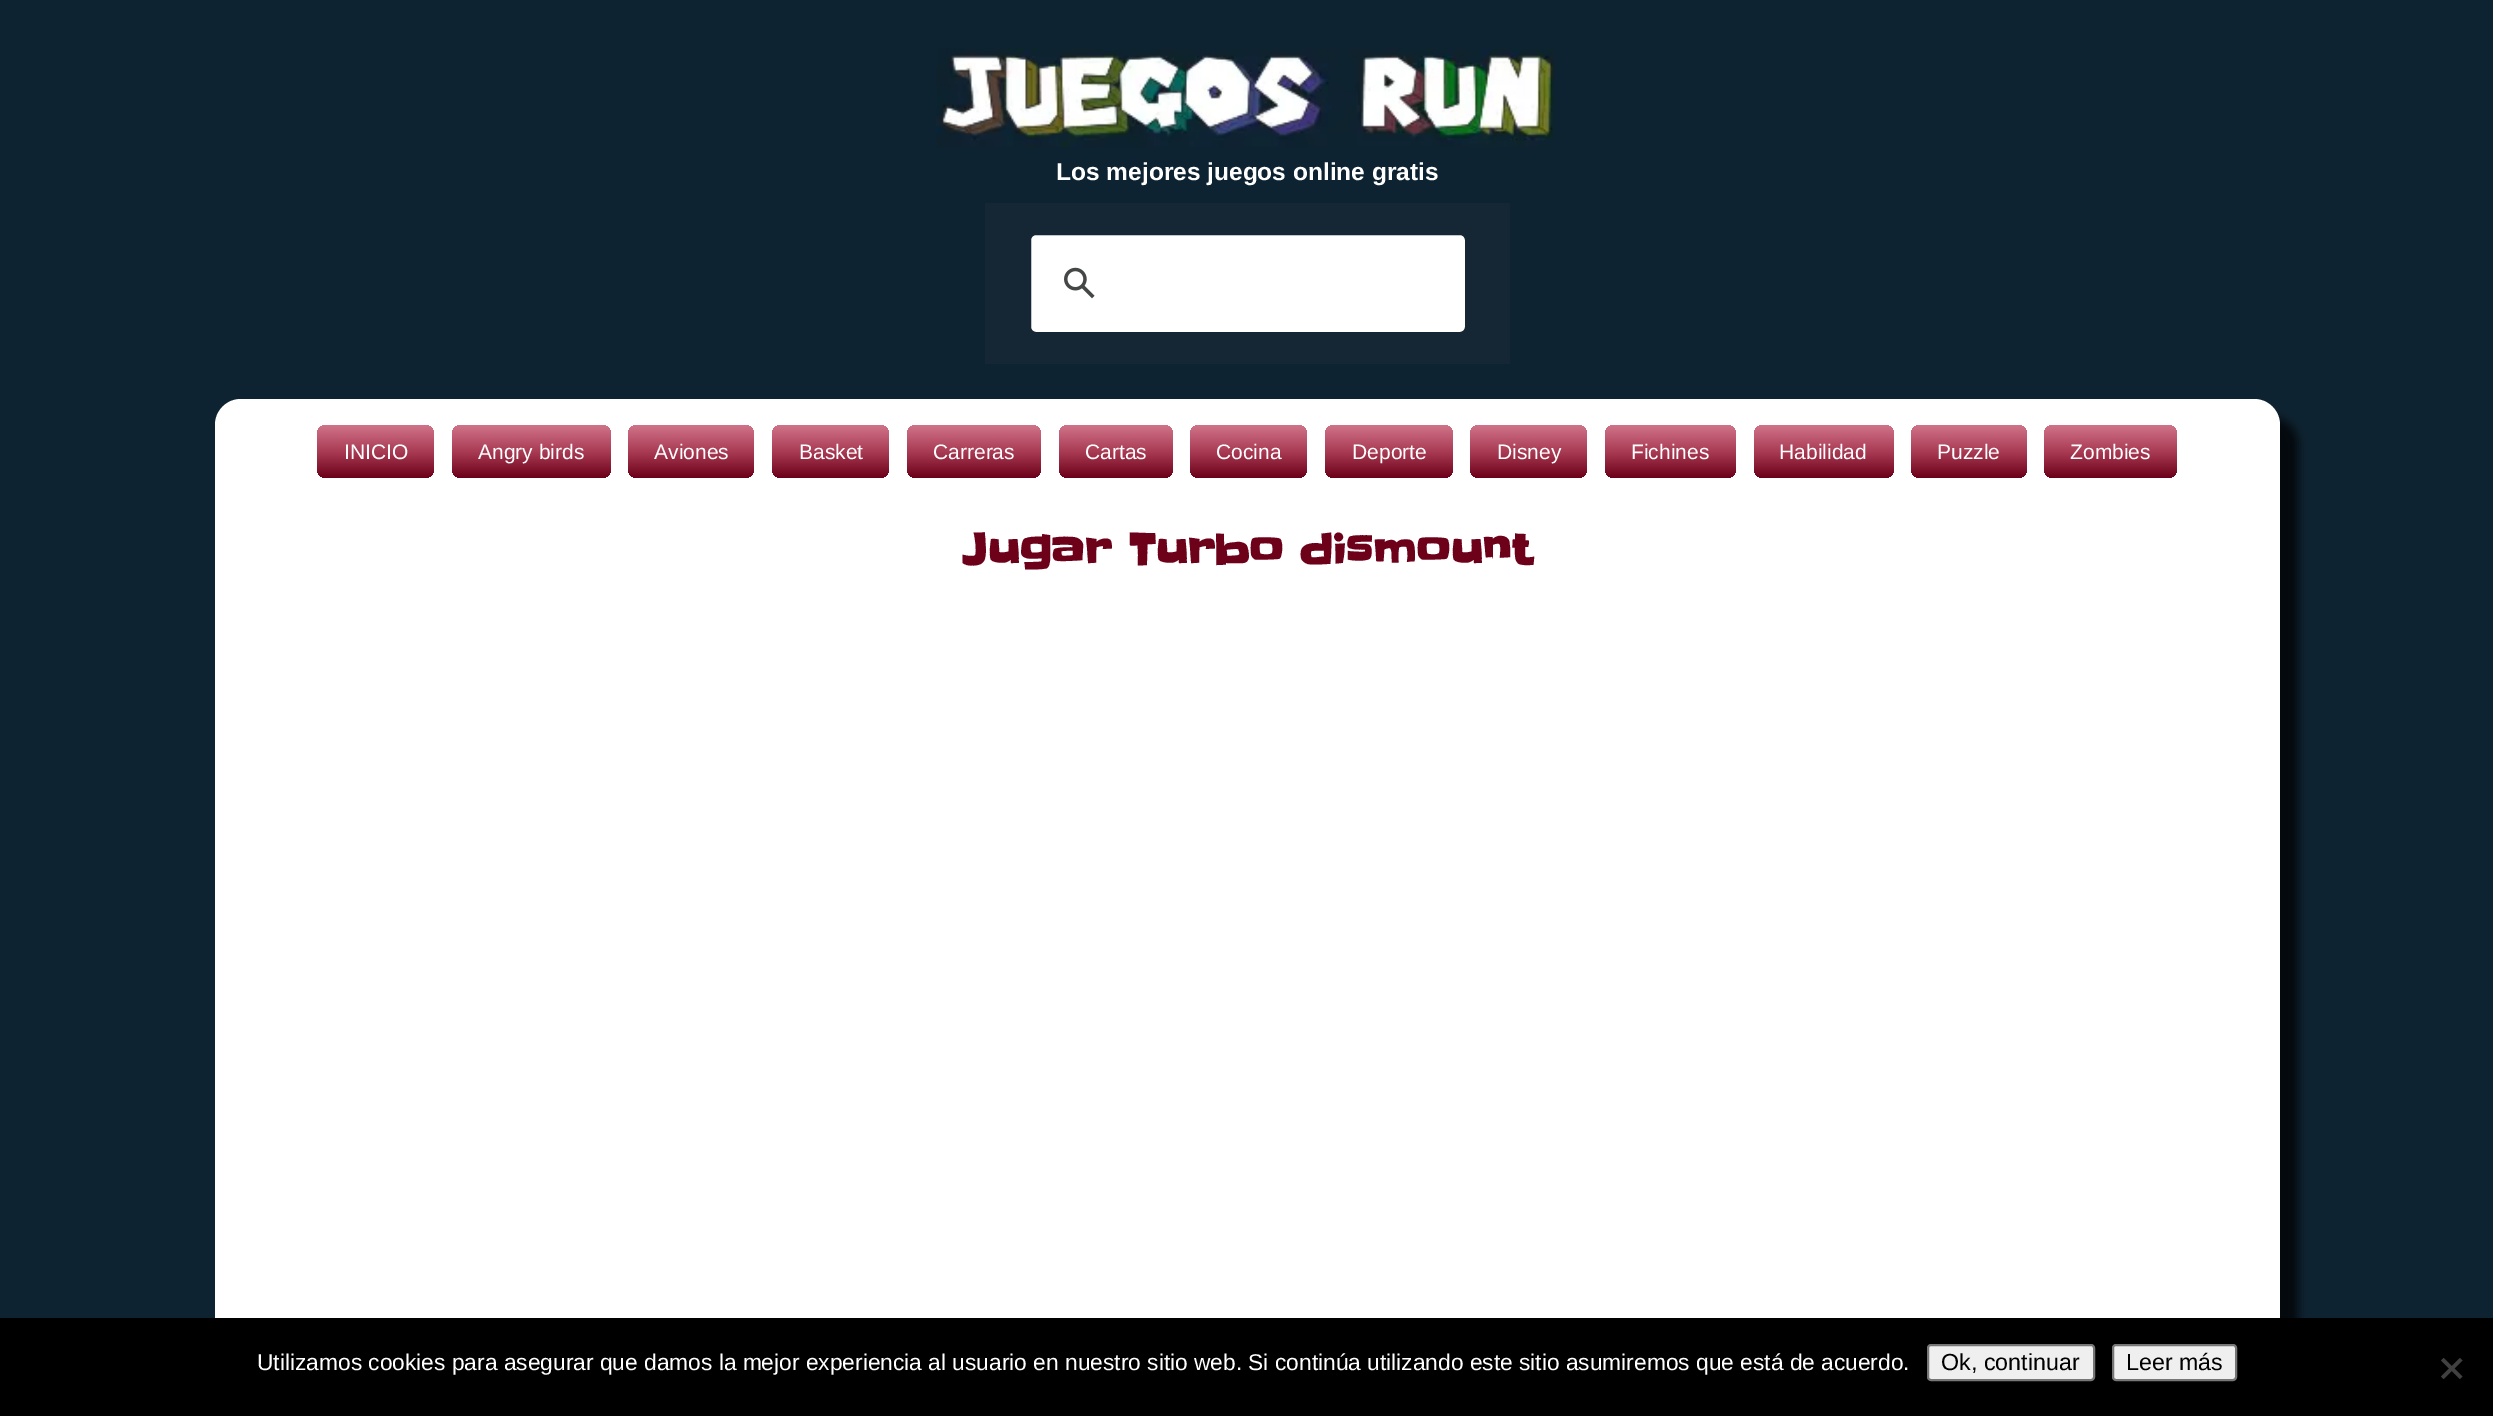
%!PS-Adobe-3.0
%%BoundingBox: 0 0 2493 1416
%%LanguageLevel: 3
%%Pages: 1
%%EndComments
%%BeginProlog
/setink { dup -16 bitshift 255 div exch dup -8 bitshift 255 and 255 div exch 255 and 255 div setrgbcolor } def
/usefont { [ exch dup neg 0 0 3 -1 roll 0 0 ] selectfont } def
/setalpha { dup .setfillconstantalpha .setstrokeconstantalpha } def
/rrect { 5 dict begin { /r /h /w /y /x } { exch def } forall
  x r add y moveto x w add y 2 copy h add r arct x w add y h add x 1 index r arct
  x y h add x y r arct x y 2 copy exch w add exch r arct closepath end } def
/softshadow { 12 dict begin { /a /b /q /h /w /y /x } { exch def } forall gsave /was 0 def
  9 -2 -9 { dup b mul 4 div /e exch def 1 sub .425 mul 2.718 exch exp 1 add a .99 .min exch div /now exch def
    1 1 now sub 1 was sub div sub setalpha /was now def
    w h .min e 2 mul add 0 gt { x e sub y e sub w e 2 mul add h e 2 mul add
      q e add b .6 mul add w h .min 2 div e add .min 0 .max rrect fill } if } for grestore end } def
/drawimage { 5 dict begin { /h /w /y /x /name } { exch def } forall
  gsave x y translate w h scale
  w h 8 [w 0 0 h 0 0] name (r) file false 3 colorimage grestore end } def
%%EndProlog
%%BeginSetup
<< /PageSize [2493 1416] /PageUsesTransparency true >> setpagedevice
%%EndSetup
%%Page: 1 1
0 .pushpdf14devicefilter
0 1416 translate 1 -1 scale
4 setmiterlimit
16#0E2331 setink
0 0 2493 1416 rectfill
(img1.raw) 936 48 619 100 drawimage
/LiberationSans-Bold 24.5 usefont
16#FFFFFF setink
1056 180 moveto (Los mejores juegos online gratis) show
16#152734 setink
985 203 525 161 rectfill
16#FFFFFF setink
1030 234 436 99 6 rrect gsave fill grestore
16#152734 setink
2 setlinewidth
stroke
(img2.raw) 1064 267 31 32 drawimage
16#000000 setink
233 417 2065 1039 26 4.5 0.75 softshadow
16#FFFFFF setink
215 399 2065 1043 26 rrect fill
gsave 317 425 117 53 9 rrect clip newpath
<< /ShadingType 2 /ColorSpace /DeviceRGB /Coords [375 425 375 478] /Extend [true true] /Function << /FunctionType 3 /Domain [0 1] /Functions [<< /FunctionType 2 /Domain [0 1] /C0 [0.816 0.455 0.537] /C1 [0.659 0.227 0.325] /N 1 >> << /FunctionType 2 /Domain [0 1] /C0 [0.659 0.227 0.325] /C1 [0.427 0 0.098] /N 1 >>] /Bounds [0.51] /Encode [0 1 0 1] >> >> shfill grestore
/LiberationSans-Regular 21 usefont
344 459 moveto (INICIO) show
gsave 452 425 159 53 9 rrect clip newpath
<< /ShadingType 2 /ColorSpace /DeviceRGB /Coords [531 425 531 478] /Extend [true true] /Function << /FunctionType 3 /Domain [0 1] /Functions [<< /FunctionType 2 /Domain [0 1] /C0 [0.816 0.455 0.537] /C1 [0.659 0.227 0.325] /N 1 >> << /FunctionType 2 /Domain [0 1] /C0 [0.659 0.227 0.325] /C1 [0.427 0 0.098] /N 1 >>] /Bounds [0.51] /Encode [0 1 0 1] >> >> shfill grestore
478 459 moveto (Angry birds) show
gsave 628 425 126 53 9 rrect clip newpath
<< /ShadingType 2 /ColorSpace /DeviceRGB /Coords [691 425 691 478] /Extend [true true] /Function << /FunctionType 3 /Domain [0 1] /Functions [<< /FunctionType 2 /Domain [0 1] /C0 [0.816 0.455 0.537] /C1 [0.659 0.227 0.325] /N 1 >> << /FunctionType 2 /Domain [0 1] /C0 [0.659 0.227 0.325] /C1 [0.427 0 0.098] /N 1 >>] /Bounds [0.51] /Encode [0 1 0 1] >> >> shfill grestore
654 459 moveto (Aviones) show
gsave 772 425 117 53 9 rrect clip newpath
<< /ShadingType 2 /ColorSpace /DeviceRGB /Coords [830 425 830 478] /Extend [true true] /Function << /FunctionType 3 /Domain [0 1] /Functions [<< /FunctionType 2 /Domain [0 1] /C0 [0.816 0.455 0.537] /C1 [0.659 0.227 0.325] /N 1 >> << /FunctionType 2 /Domain [0 1] /C0 [0.659 0.227 0.325] /C1 [0.427 0 0.098] /N 1 >>] /Bounds [0.51] /Encode [0 1 0 1] >> >> shfill grestore
799 459 moveto (Basket) show
gsave 907 425 134 53 9 rrect clip newpath
<< /ShadingType 2 /ColorSpace /DeviceRGB /Coords [974 425 974 478] /Extend [true true] /Function << /FunctionType 3 /Domain [0 1] /Functions [<< /FunctionType 2 /Domain [0 1] /C0 [0.816 0.455 0.537] /C1 [0.659 0.227 0.325] /N 1 >> << /FunctionType 2 /Domain [0 1] /C0 [0.659 0.227 0.325] /C1 [0.427 0 0.098] /N 1 >>] /Bounds [0.51] /Encode [0 1 0 1] >> >> shfill grestore
933 459 moveto (Carreras) show
gsave 1059 425 114 53 9 rrect clip newpath
<< /ShadingType 2 /ColorSpace /DeviceRGB /Coords [1116 425 1116 478] /Extend [true true] /Function << /FunctionType 3 /Domain [0 1] /Functions [<< /FunctionType 2 /Domain [0 1] /C0 [0.816 0.455 0.537] /C1 [0.659 0.227 0.325] /N 1 >> << /FunctionType 2 /Domain [0 1] /C0 [0.659 0.227 0.325] /C1 [0.427 0 0.098] /N 1 >>] /Bounds [0.51] /Encode [0 1 0 1] >> >> shfill grestore
1085 459 moveto (Cartas) show
gsave 1190 425 117 53 9 rrect clip newpath
<< /ShadingType 2 /ColorSpace /DeviceRGB /Coords [1249 425 1249 478] /Extend [true true] /Function << /FunctionType 3 /Domain [0 1] /Functions [<< /FunctionType 2 /Domain [0 1] /C0 [0.816 0.455 0.537] /C1 [0.659 0.227 0.325] /N 1 >> << /FunctionType 2 /Domain [0 1] /C0 [0.659 0.227 0.325] /C1 [0.427 0 0.098] /N 1 >>] /Bounds [0.51] /Encode [0 1 0 1] >> >> shfill grestore
1216 459 moveto (Cocina) show
gsave 1325 425 128 53 9 rrect clip newpath
<< /ShadingType 2 /ColorSpace /DeviceRGB /Coords [1389 425 1389 478] /Extend [true true] /Function << /FunctionType 3 /Domain [0 1] /Functions [<< /FunctionType 2 /Domain [0 1] /C0 [0.816 0.455 0.537] /C1 [0.659 0.227 0.325] /N 1 >> << /FunctionType 2 /Domain [0 1] /C0 [0.659 0.227 0.325] /C1 [0.427 0 0.098] /N 1 >>] /Bounds [0.51] /Encode [0 1 0 1] >> >> shfill grestore
1352 459 moveto (Deporte) show
gsave 1470 425 117 53 9 rrect clip newpath
<< /ShadingType 2 /ColorSpace /DeviceRGB /Coords [1529 425 1529 478] /Extend [true true] /Function << /FunctionType 3 /Domain [0 1] /Functions [<< /FunctionType 2 /Domain [0 1] /C0 [0.816 0.455 0.537] /C1 [0.659 0.227 0.325] /N 1 >> << /FunctionType 2 /Domain [0 1] /C0 [0.659 0.227 0.325] /C1 [0.427 0 0.098] /N 1 >>] /Bounds [0.51] /Encode [0 1 0 1] >> >> shfill grestore
1497 459 moveto (Disney) show
gsave 1605 425 131 53 9 rrect clip newpath
<< /ShadingType 2 /ColorSpace /DeviceRGB /Coords [1670 425 1670 478] /Extend [true true] /Function << /FunctionType 3 /Domain [0 1] /Functions [<< /FunctionType 2 /Domain [0 1] /C0 [0.816 0.455 0.537] /C1 [0.659 0.227 0.325] /N 1 >> << /FunctionType 2 /Domain [0 1] /C0 [0.659 0.227 0.325] /C1 [0.427 0 0.098] /N 1 >>] /Bounds [0.51] /Encode [0 1 0 1] >> >> shfill grestore
1631 459 moveto (Fichines) show
gsave 1754 425 140 53 9 rrect clip newpath
<< /ShadingType 2 /ColorSpace /DeviceRGB /Coords [1824 425 1824 478] /Extend [true true] /Function << /FunctionType 3 /Domain [0 1] /Functions [<< /FunctionType 2 /Domain [0 1] /C0 [0.816 0.455 0.537] /C1 [0.659 0.227 0.325] /N 1 >> << /FunctionType 2 /Domain [0 1] /C0 [0.659 0.227 0.325] /C1 [0.427 0 0.098] /N 1 >>] /Bounds [0.51] /Encode [0 1 0 1] >> >> shfill grestore
1779 459 moveto (Habilidad) show
gsave 1911 425 116 53 9 rrect clip newpath
<< /ShadingType 2 /ColorSpace /DeviceRGB /Coords [1969 425 1969 478] /Extend [true true] /Function << /FunctionType 3 /Domain [0 1] /Functions [<< /FunctionType 2 /Domain [0 1] /C0 [0.816 0.455 0.537] /C1 [0.659 0.227 0.325] /N 1 >> << /FunctionType 2 /Domain [0 1] /C0 [0.659 0.227 0.325] /C1 [0.427 0 0.098] /N 1 >>] /Bounds [0.51] /Encode [0 1 0 1] >> >> shfill grestore
1937 459 moveto (Puzzle) show
gsave 2044 425 133 53 9 rrect clip newpath
<< /ShadingType 2 /ColorSpace /DeviceRGB /Coords [2111 425 2111 478] /Extend [true true] /Function << /FunctionType 3 /Domain [0 1] /Functions [<< /FunctionType 2 /Domain [0 1] /C0 [0.816 0.455 0.537] /C1 [0.659 0.227 0.325] /N 1 >> << /FunctionType 2 /Domain [0 1] /C0 [0.659 0.227 0.325] /C1 [0.427 0 0.098] /N 1 >>] /Bounds [0.51] /Encode [0 1 0 1] >> >> shfill grestore
2070 459 moveto (Zombies) show
/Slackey-Bold 42 usefont
16#6E011A setink
962 565 moveto (Jugar Turbo dismount) show
16#000000 setink
0 1318 2493 98 rectfill
/LiberationSans-Regular 22.75 usefont
16#FFFFFF setink
257 1370 moveto (Utilizamos cookies para asegurar que damos la mejor experiencia al usuario en nuestro sitio web. Si continúa utilizando este sitio asumiremos que está de acuerdo.) show
16#EFEFEF setink
1928 1345 166 35 3 rrect gsave fill grestore
16#767676 setink
stroke
/LiberationSans-Regular 23.25 usefont
16#000000 setink
1941 1370 moveto (Ok, continuar) show
16#EFEFEF setink
2113 1345 123 35 3 rrect gsave fill grestore
16#767676 setink
stroke
16#000000 setink
2126 1370 moveto (Leer más) show
16#404040 setink
2460 1358 moveto 2462.5 1360.5 lineto 2443.5 1379 lineto 2441 1376.5 lineto closepath fill
2441 1360.5 moveto 2443.5 1358 lineto 2462.5 1376.5 lineto 2460 1379 lineto closepath fill
.poppdf14devicefilter showpage
%%EOF
